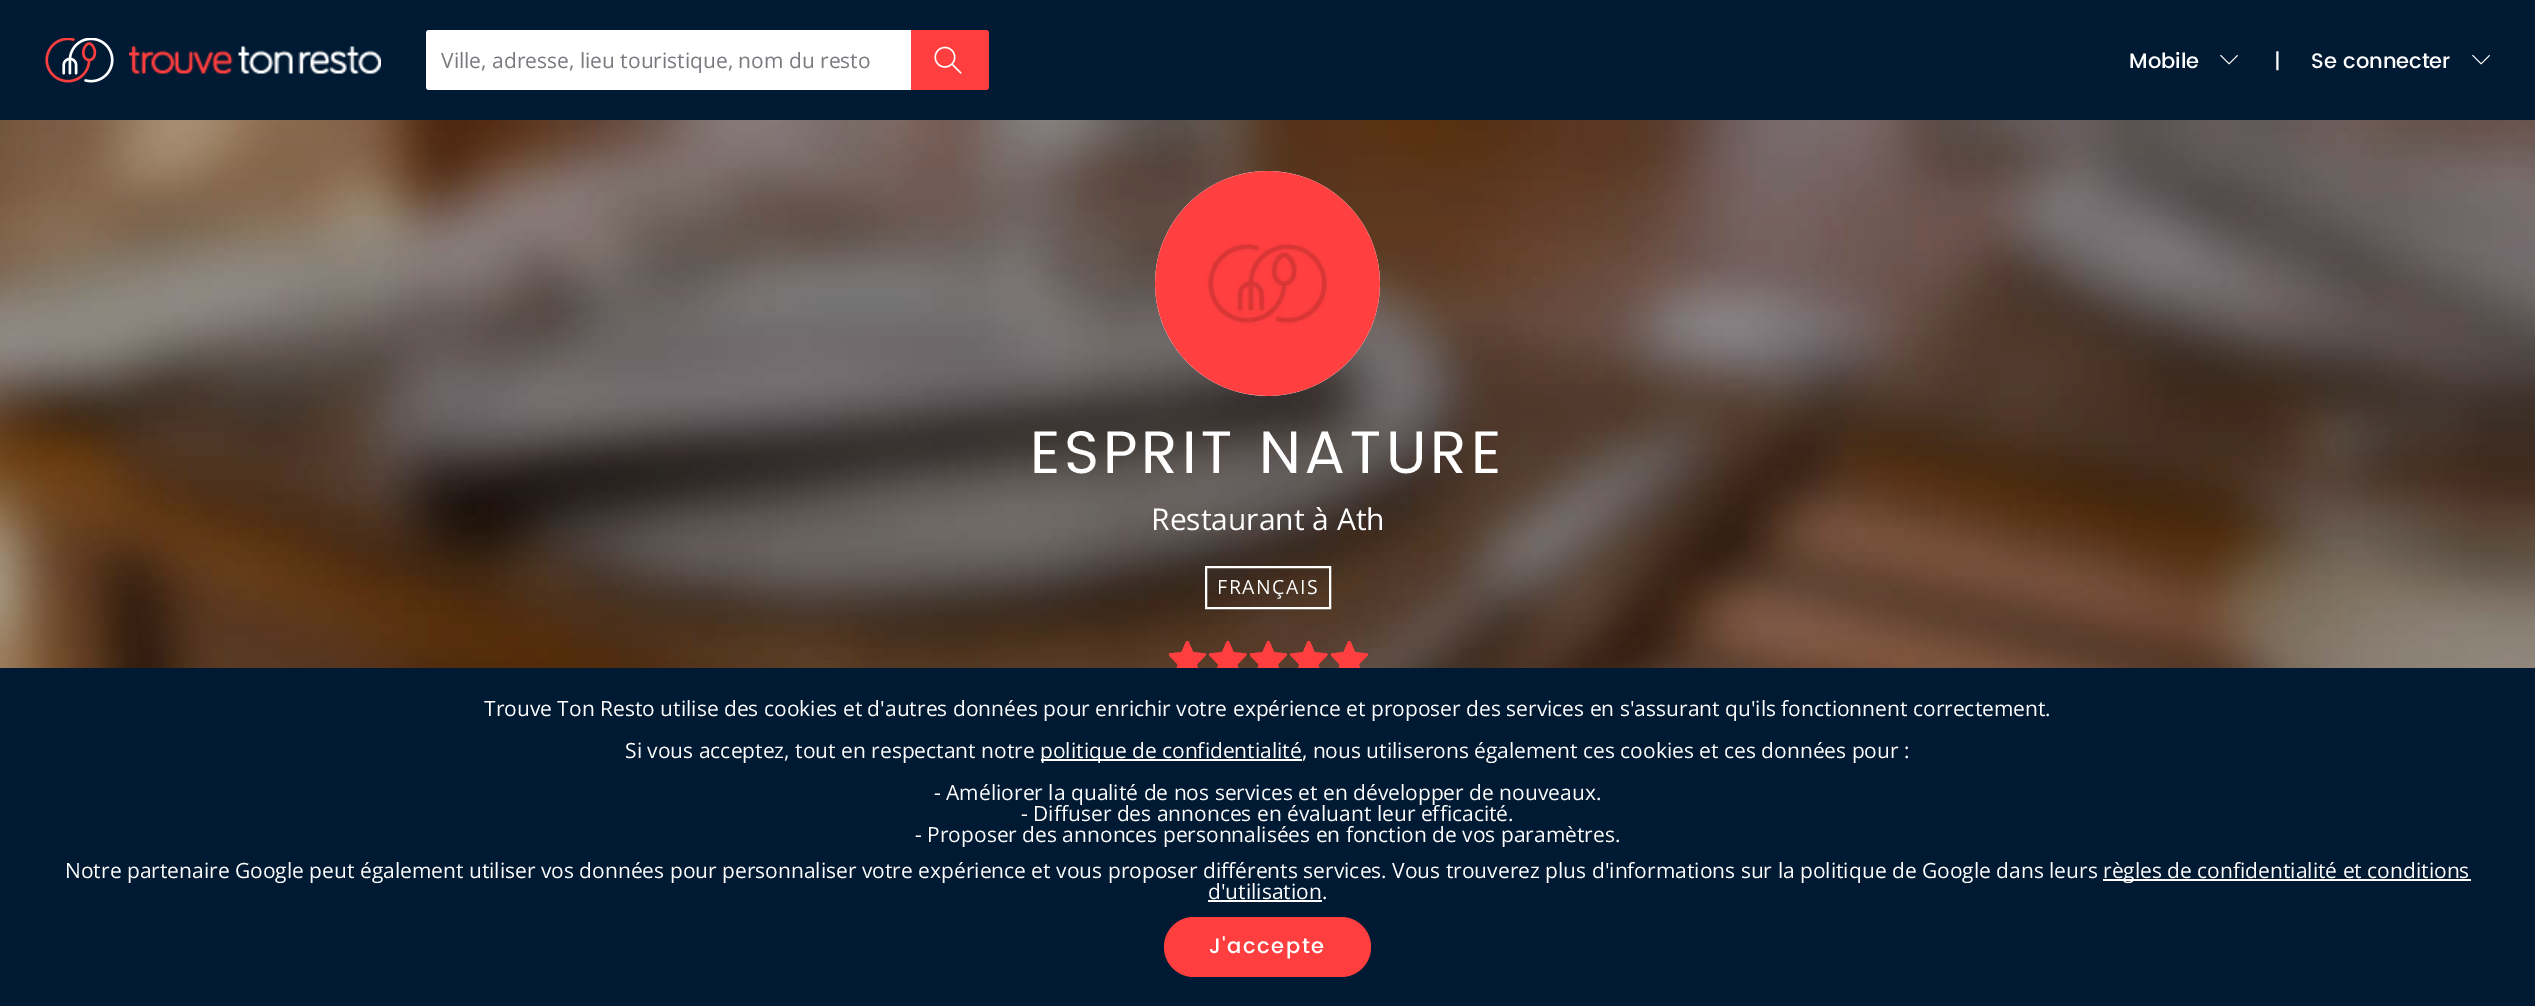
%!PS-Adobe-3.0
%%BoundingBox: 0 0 2535 1006
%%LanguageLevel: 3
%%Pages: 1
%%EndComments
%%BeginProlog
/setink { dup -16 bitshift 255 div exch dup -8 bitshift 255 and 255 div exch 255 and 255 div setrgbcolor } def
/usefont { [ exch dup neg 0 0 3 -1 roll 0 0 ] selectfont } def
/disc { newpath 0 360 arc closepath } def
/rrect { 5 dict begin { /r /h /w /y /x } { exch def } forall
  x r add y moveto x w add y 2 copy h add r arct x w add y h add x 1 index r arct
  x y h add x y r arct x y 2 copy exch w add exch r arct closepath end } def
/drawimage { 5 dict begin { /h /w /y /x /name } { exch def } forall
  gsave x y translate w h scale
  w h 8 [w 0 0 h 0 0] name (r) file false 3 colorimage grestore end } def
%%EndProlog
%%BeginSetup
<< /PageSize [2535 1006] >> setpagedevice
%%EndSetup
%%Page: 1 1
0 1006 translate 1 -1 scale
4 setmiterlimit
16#FFFFFF setink
0 0 2535 1006 rectfill
16#001A33 setink
0 0 2535 120 rectfill
(img1.raw) 45 38 69 45 drawimage
(img2.raw) 129 46 252 28 drawimage
16#FFFFFF setink
429 30 moveto 911 30 lineto 911 90 lineto 429 90 lineto 427.5 90 426 88.5 426 87 curveto 426 33 lineto 426 31.5 427.5 30 429 30 curveto closepath fill
/OpenSans-Regular 21 usefont
16#797A7F setink
441 68 moveto (Ville, adresse, lieu touristique, nom du resto) show
16#FF3F3F setink
911 30 moveto 986 30 lineto 987.5 30 989 31.5 989 33 curveto 989 87 lineto 989 88.5 987.5 90 986 90 curveto 911 90 lineto closepath fill
(img3.raw) 934 46 28 28 drawimage
/Poppins-Medium 21 usefont
16#FFFFFF setink
2129 68 moveto (Mobile) show
(img4.raw) 2220 54 18 11 drawimage
2274 68 moveto (|) show
2311 68 moveto (Se connecter) show
(img4.raw) 2472 54 18 11 drawimage
(img5.raw) 0 120 2535 548 drawimage
16#F3F4F5 setink
1267.5 283.5 112.5 disc fill
(img6.raw) 1154 171 226 225 drawimage
/Poppins-Regular 60 usefont
16#FFFFFF setink
1030 473 moveto 3.75 0 (ESPRIT NATURE) ashow
/OpenSans-Regular 30 usefont
1151 530 moveto (Restaurant à Ath) show
2 setlinewidth
1206 567 124 41 rectstroke
/OpenSans-Regular 19.5 usefont
1217 594 moveto 1.5 0 (FRANÇAIS) ashow
(img7.raw) 1169 641 37 27 drawimage
(img8.raw) 1209 641 38 27 drawimage
(img9.raw) 1250 641 37 27 drawimage
(img10.raw) 1290 641 38 27 drawimage
(img11.raw) 1331 641 37 27 drawimage
(img12.raw) 1169 641 37 27 drawimage
(img13.raw) 1209 641 38 27 drawimage
(img14.raw) 1250 641 37 27 drawimage
(img15.raw) 1290 641 38 27 drawimage
(img16.raw) 1331 641 37 27 drawimage
16#001A33 setink
0 668 2535 338 rectfill
/OpenSans-Regular 21 usefont
16#FFFFFF setink
484 716 moveto (Trouve Ton Resto utilise des cookies et d'autres données pour enrichir votre expérience et proposer des services en s'assurant qu'ils fonctionnent correctement.) show
625 758 moveto (Si vous acceptez, tout en respectant notre) show
1041 759 261 2 rectfill
[
    [(politique de confidentialité, nous utiliserons également ces cookies et ces données pour :) 1040 758]
    [(- Améliorer la qualité de nos services et en développer de nouveaux.) 934 800]
    [(- Diffuser des annonces en évaluant leur efficacité.) 1021 821]
    [(- Proposer des annonces personnalisées en fonction de vos paramètres.) 915 842]
    [(Notre partenaire Google peut également utiliser vos données pour personnaliser votre expérience et vous proposer différents services. Vous trouverez plus d'informations sur la politique de Google dans leurs) 65 878]
] { aload pop moveto show } forall
2103 879 368 2 rectfill
2103 878 moveto (règles de confidentialité et conditions) show
1208 899 moveto (d'utilisation.) show
1208 900 114 2 rectfill
16#FF3F3F setink
1164 917 207 60 30 rrect fill
/Poppins-Medium 21 usefont
16#FFFFFF setink
1209 953 moveto 1.5 0 (J'accepte) ashow
showpage
%%EOF
